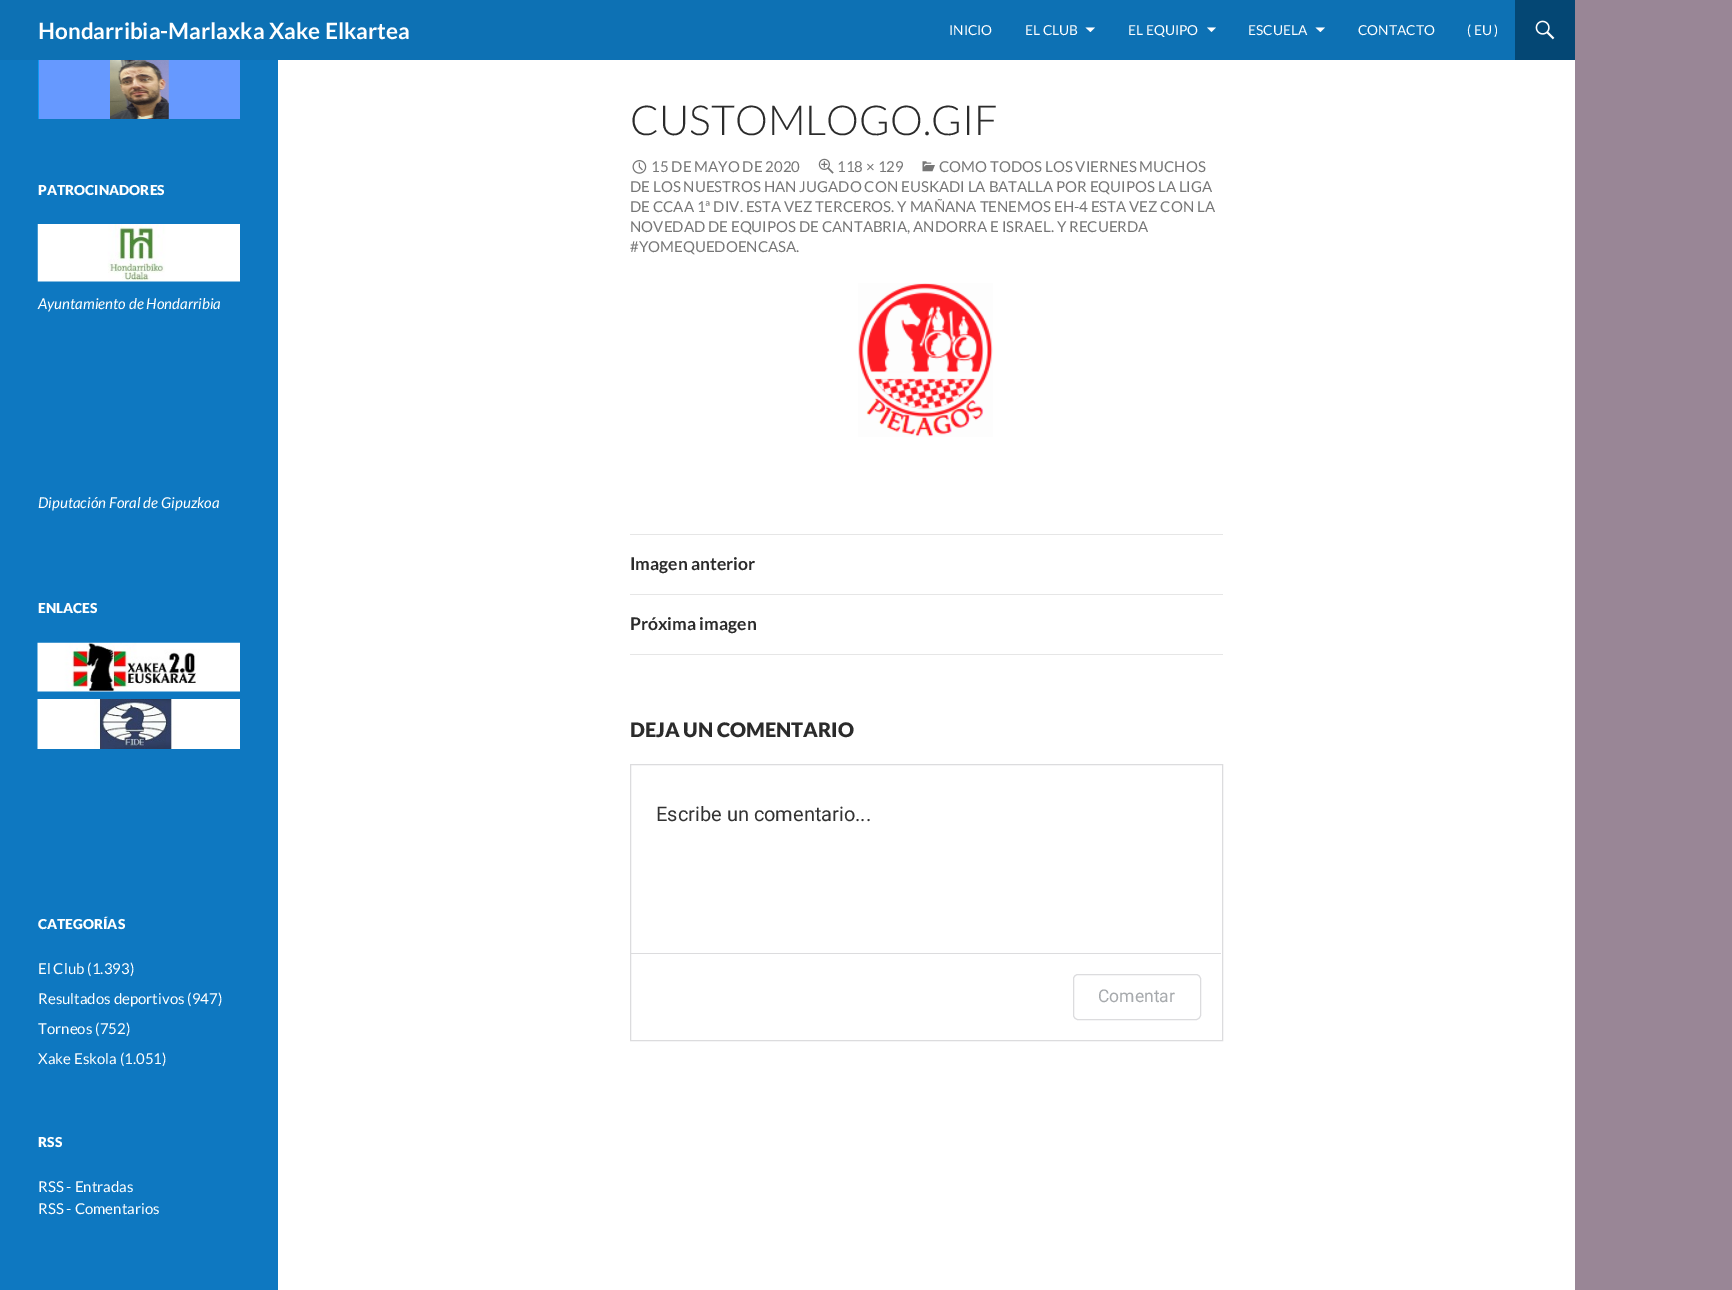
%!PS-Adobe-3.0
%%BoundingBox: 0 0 1732 1290
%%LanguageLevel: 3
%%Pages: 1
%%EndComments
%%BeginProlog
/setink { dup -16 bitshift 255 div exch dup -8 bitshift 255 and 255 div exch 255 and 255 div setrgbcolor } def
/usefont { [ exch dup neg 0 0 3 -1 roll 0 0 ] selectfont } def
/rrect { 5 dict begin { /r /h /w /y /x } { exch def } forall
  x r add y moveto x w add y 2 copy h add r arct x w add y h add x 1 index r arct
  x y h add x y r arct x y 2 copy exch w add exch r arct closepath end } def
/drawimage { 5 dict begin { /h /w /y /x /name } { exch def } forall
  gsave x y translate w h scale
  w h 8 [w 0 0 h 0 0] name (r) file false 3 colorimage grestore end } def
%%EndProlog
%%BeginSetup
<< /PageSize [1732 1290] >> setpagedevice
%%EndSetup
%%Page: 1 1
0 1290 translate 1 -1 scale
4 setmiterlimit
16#998696 setink
0 0 1732 1290 rectfill
16#FFFFFF setink
278 60 1297 1230 rectfill
16#0D71B4 setink
0 0 1515 60 rectfill
/Lato-Bold 22.5 usefont
16#FFFFFF setink
38 39 moveto (Hondarribia-Marlaxka Xake Elkartea) show
/Lato-Regular 13.75 usefont
949 35 moveto (INICIO) show
1025 35 moveto (EL CLUB) show
1085.5 27.5 moveto 1095 27.5 lineto 1090.5 32 lineto closepath fill
1128 35 moveto (EL EQUIPO) show
1207 27.5 moveto 1216 27.5 lineto 1211.5 32 lineto closepath fill
1248 35 moveto (ESCUELA) show
1315.5 27.5 moveto 1325 27.5 lineto 1320.5 32 lineto closepath fill
1358 35 moveto (CONTACTO) show
1467 35 moveto (\( EU \)) show
16#044774 setink
1515 0 60 60 rectfill
(img1.raw) 1535 20 20 20 drawimage
[
    [0 60 278 1230 16#0E78C1]
    [38 60 1 59 16#1098F3]
    [39 60 201 59 16#6699FF]
] { aload pop setink rectfill } forall
(img2.raw) 110 60 59 59 drawimage
/Lato-Black 13.75 usefont
16#FFFFFF setink
38 195 moveto (PATROCINADORES) show
(img3.raw) 37 224 203 58 drawimage
/Lato-Italic 15 usefont
38 309 moveto (Ayuntamiento de Hondarribia) show
38 508 moveto (Diputación Foral de Gipuzkoa) show
/Lato-Black 13.75 usefont
38 613 moveto (ENLACES) show
(img4.raw) 37 642 203 50 drawimage
(img5.raw) 37 699 203 50 drawimage
38 929 moveto (CATEGORÍAS) show
/Lato-Regular 15 usefont
[
    [(El Club \(1.393\)) 38 974]
    [(Resultados deportivos \(947\)) 38 1004]
    [(Torneos \(752\)) 38 1034]
    [(Xake Eskola \(1.051\)) 38 1064]
] { aload pop moveto show } forall
/Lato-Black 13.75 usefont
38 1147 moveto (RSS) show
/Lato-Regular 15 usefont
38 1192 moveto (RSS - Entradas) show
38 1214 moveto (RSS - Comentarios) show
/Lato-Light 41.25 usefont
16#2B2B2B setink
630 135 moveto (CUSTOMLOGO.GIF) show
(img6.raw) 922 161 13 11 drawimage
/Lato-Regular 15 usefont
16#767676 setink
[
    [(COMO TODOS LOS VIERNES MUCHOS) 939 172]
    [(DE LOS NUESTROS HAN JUGADO CON EUSKADI LA BATALLA POR EQUIPOS LA LIGA) 630 192]
    [(DE CCAA 1ª DIV. ESTA VEZ TERCEROS. Y MAÑANA TENEMOS EH-4 ESTA VEZ CON LA) 630 212]
    [(NOVEDAD DE EQUIPOS DE CANTABRIA, ANDORRA E ISRAEL. Y RECUERDA) 630 232]
    [(#YOMEQUEDOENCASA.) 630 252]
] { aload pop moveto show } forall
(img7.raw) 632 160 15 14 drawimage
651 172 moveto (15 DE MAYO DE 2020) show
(img8.raw) 818 158 16 16 drawimage
837 172 moveto (118 × 129) show
(img9.raw) 858 283 135 154 drawimage
16#E6E6E6 setink
630 534 593 1 rectfill
630 594 593 1 rectfill
/Lato-Bold 17.5 usefont
16#2B2B2B setink
630 570 moveto (Imagen anterior) show
16#E6E6E6 setink
630 654 593 1 rectfill
16#2B2B2B setink
630 630 moveto (Próxima imagen) show
/Lato-Black 20 usefont
630 737 moveto (DEJA UN COMENTARIO) show
16#DCDCDE setink
630.5 764.5 592 276 rectstroke
/Roboto-Regular 20 usefont
16#333333 setink
656 821 moveto (Escribe un comentario...) show
16#DCDCDE setink
631 953 590 1 rectfill
1073.5 974.5 127 45 4.5 rrect stroke
/Roboto-Regular 17.5 usefont
16#A7AAAD setink
1098 1002 moveto (Comentar) show
showpage
%%EOF
